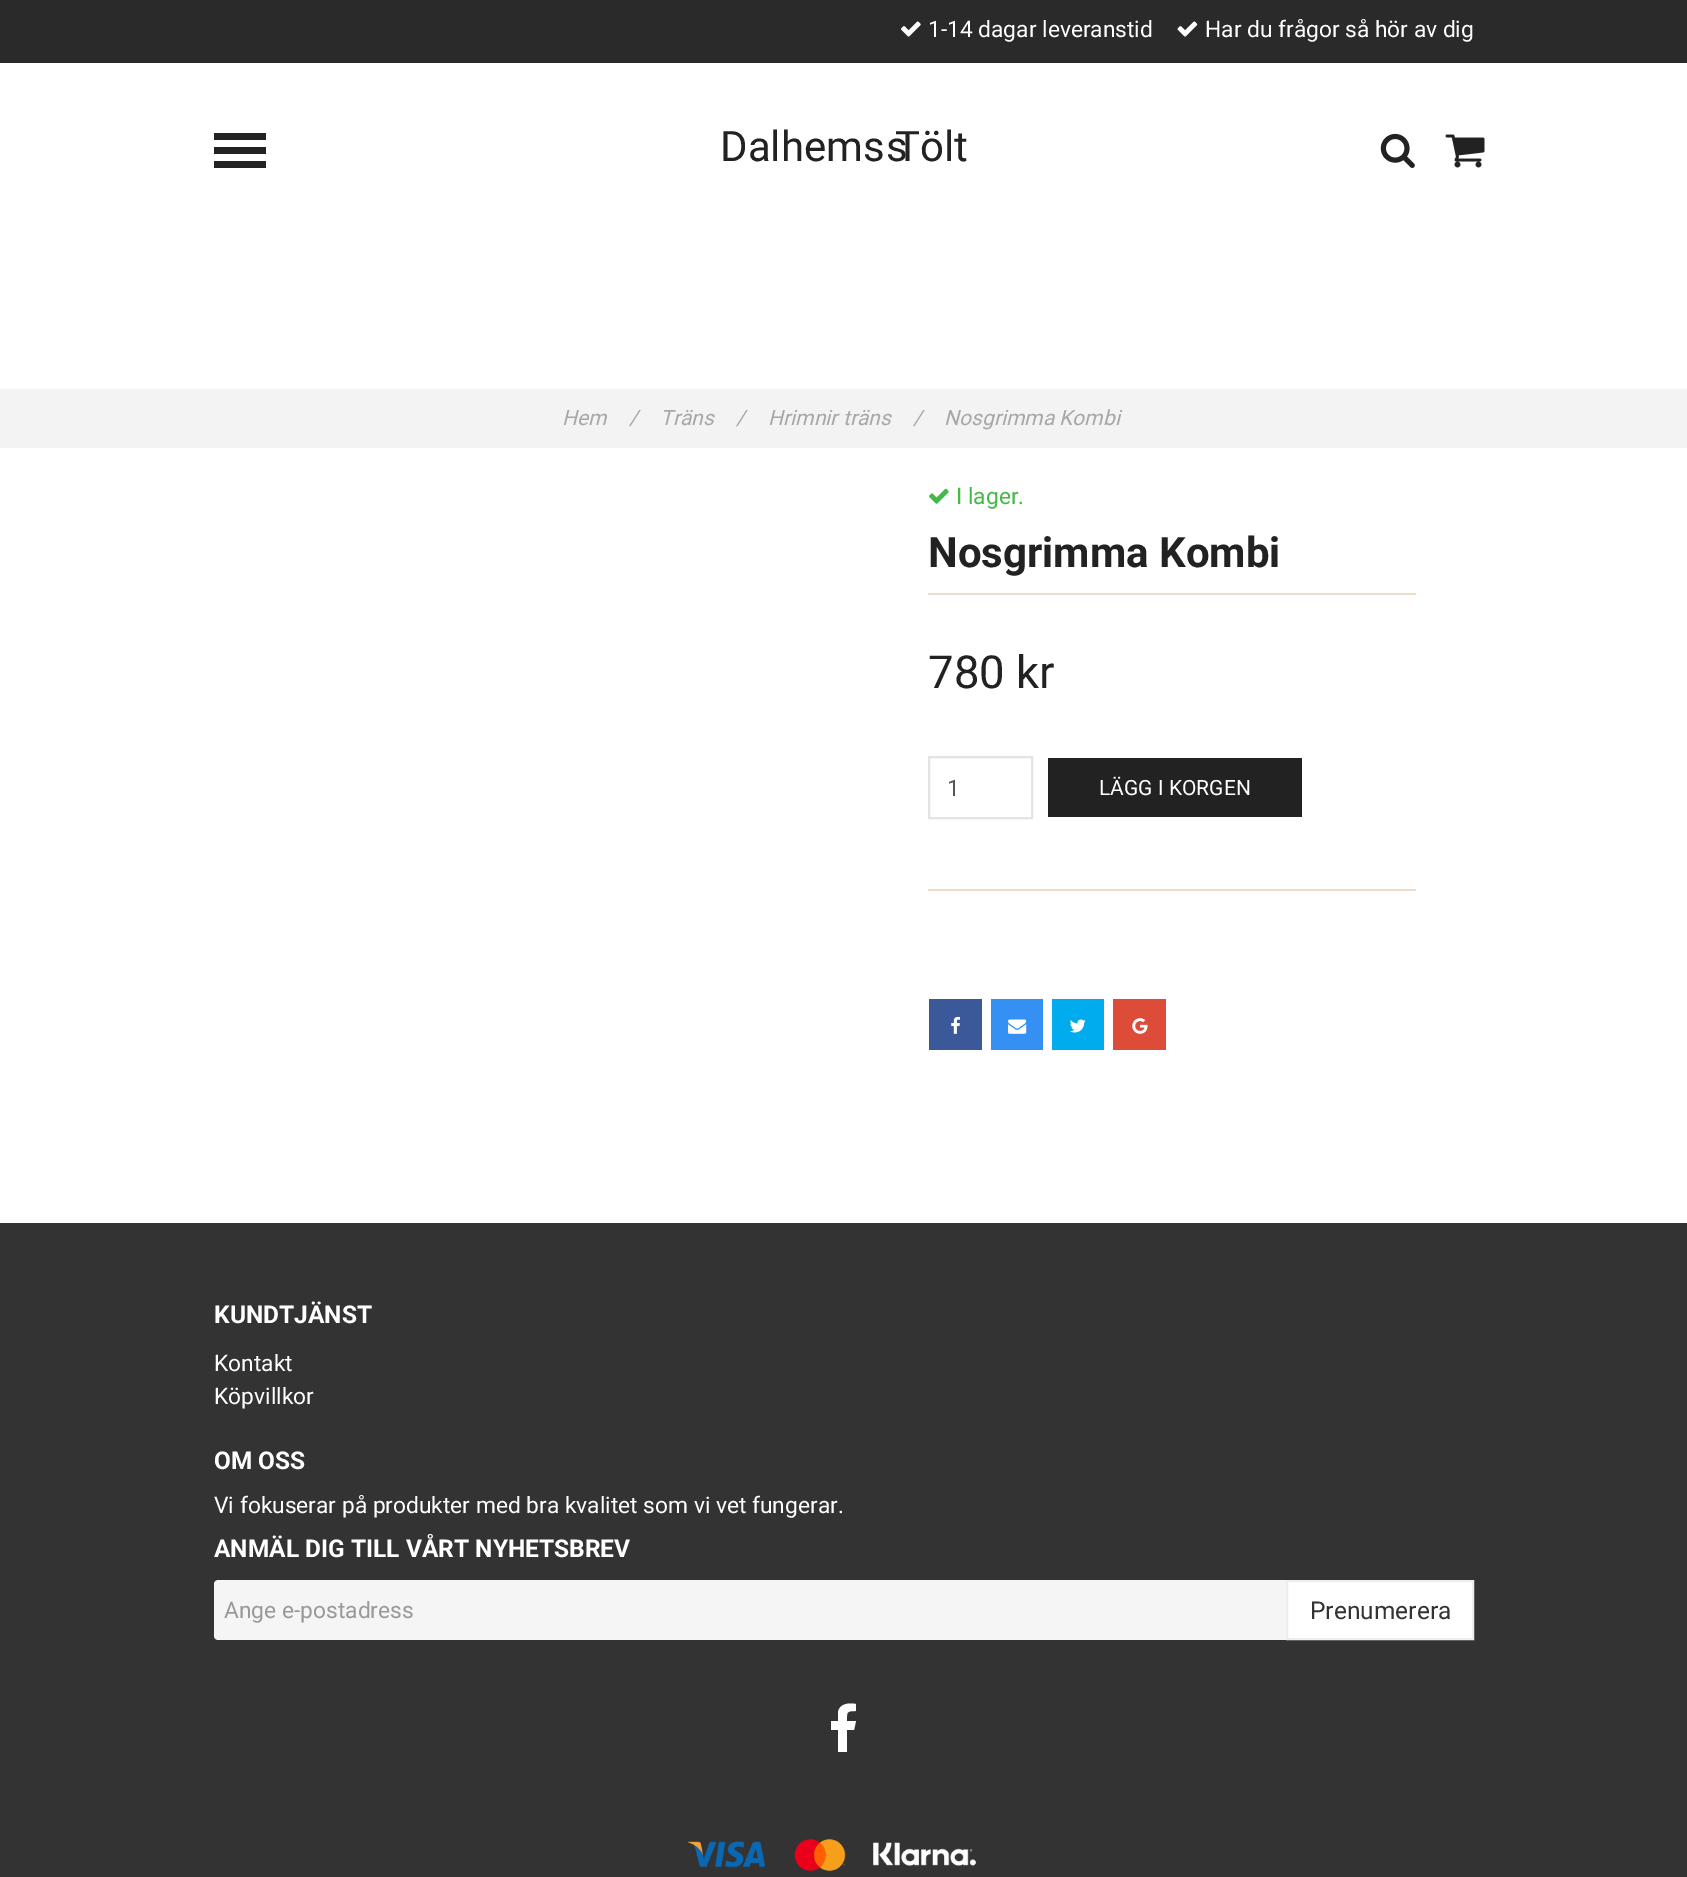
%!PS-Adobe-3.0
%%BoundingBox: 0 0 1687 1877
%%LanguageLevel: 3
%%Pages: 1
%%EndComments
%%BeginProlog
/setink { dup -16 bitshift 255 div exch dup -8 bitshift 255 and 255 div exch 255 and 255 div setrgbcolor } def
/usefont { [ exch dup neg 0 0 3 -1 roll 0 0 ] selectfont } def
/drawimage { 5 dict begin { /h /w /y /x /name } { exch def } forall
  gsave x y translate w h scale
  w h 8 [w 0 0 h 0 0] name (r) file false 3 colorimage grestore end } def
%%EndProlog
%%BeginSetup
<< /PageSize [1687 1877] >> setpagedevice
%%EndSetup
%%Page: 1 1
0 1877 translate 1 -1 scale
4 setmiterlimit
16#FFFFFF setink
0 0 1687 1877 rectfill
16#2A2A2A setink
0 0 1687 63 rectfill
(img1.raw) 901 21 20 16 drawimage
/Roboto-Regular 22.75 usefont
16#FFFFFF setink
928 37 moveto (1-14 dagar leveranstid) show
(img2.raw) 1177 21 21 16 drawimage
1205 37 moveto (Har du frågor så hör av dig) show
[
    [214 147 52 7 16#222222]
    [214 133 52 7 16#222222]
    [214 161 52 7 16#222222]
] { aload pop setink rectfill } forall
/Roboto-Regular 42 usefont
720 161 moveto (Dalhems Tölt) show
886 161 moveto (s) show
(img3.raw) 1380 133 35 35 drawimage
(img4.raw) 1445 134 40 34 drawimage
16#F3F3F3 setink
0 389 1687 59 rectfill
/Roboto-Italic 21 usefont
16#A7A7A7 setink
[
    [(Hem) 562 425]
    [(/) 629 425]
    [(Träns) 660 425]
    [(/) 736 425]
    [(Hrimnir träns) 768 425]
    [(/) 913 425]
    [(Nosgrimma Kombi) 944 425]
] { aload pop moveto show } forall
(img5.raw) 929 488 20 16 drawimage
/Roboto-Regular 22.75 usefont
16#44B944 setink
956 504 moveto (I lager.) show
16#EDDBCC setink
928 593 488 2 rectfill
/Roboto-Bold 42 usefont
16#222222 setink
928 567 moveto (Nosgrimma Kombi) show
/Roboto-Regular 45.5 usefont
928 688 moveto (780 kr) show
16#E4E4E4 setink
2 setlinewidth
929 757 103 61 rectstroke
/Roboto-Regular 22.75 usefont
16#555555 setink
947 796 moveto (1) show
16#222222 setink
1048 758 254 59 rectfill
/Roboto-Regular 21 usefont
16#FFFFFF setink
1099 795 moveto (LÄGG I KORGEN) show
16#EDDBCC setink
928 889 488 2 rectfill
16#3B5998 setink
929 999 53 51 rectfill
(img6.raw) 951 1016 9 18 drawimage
16#3490F3 setink
991 999 52 51 rectfill
(img7.raw) 1008 1019 19 15 drawimage
16#00ACED setink
1052 999 52 51 rectfill
(img8.raw) 1069 1019 17 14 drawimage
16#DD4B39 setink
1113 999 53 51 rectfill
(img9.raw) 1132 1018 16 16 drawimage
16#333333 setink
0 1223 1687 654 rectfill
/Roboto-Bold 24.5 usefont
16#FFFFFF setink
214 1323 moveto (KUNDTJÄNST) show
/Roboto-Regular 22.75 usefont
214 1371 moveto (Kontakt) show
214 1404 moveto (Köpvillkor) show
/Roboto-Bold 24.5 usefont
214 1469 moveto (OM OSS) show
/Roboto-Regular 22.75 usefont
214 1513 moveto (Vi fokuserar på produkter med bra kvalitet som vi vet fungerar.) show
/Roboto-Bold 24.5 usefont
214 1557 moveto (ANMÄL DIG TILL VÅRT NYHETSBREV) show
16#F5F5F5 setink
218 1580 moveto 1288 1580 lineto 1288 1640 lineto 218 1640 lineto 216 1640 214 1638 214 1636 curveto 214 1584 lineto 214 1582 216 1580 218 1580 curveto closepath fill
/Roboto-Regular 22.75 usefont
16#999999 setink
224 1618 moveto (Ange e-postadress) show
16#FFFFFF setink
1287 1581 moveto 1473 1581 lineto 1473 1639 lineto 1287 1639 lineto closepath gsave fill grestore
16#EEEEEE setink
stroke
/Roboto-Regular 24.5 usefont
16#333333 setink
1310 1619 moveto (Prenumerera) show
16#FFFFFF setink
856 1704 moveto 856 1711 lineto 846 1711 847 1712 847 1721 curveto 856 1721 lineto 854 1730 lineto 847 1730 lineto 847 1752 lineto 838 1752 lineto 838 1730 lineto 831 1730 lineto 831 1721 lineto 838 1721 lineto 838 1712 lineto 840 1703 849 1703 856 1704 curveto closepath fill
(img10.raw) 687 1841 78 27 drawimage
(img11.raw) 794 1839 52 32 drawimage
(img12.raw) 873 1842 103 24 drawimage
showpage
%%EOF
